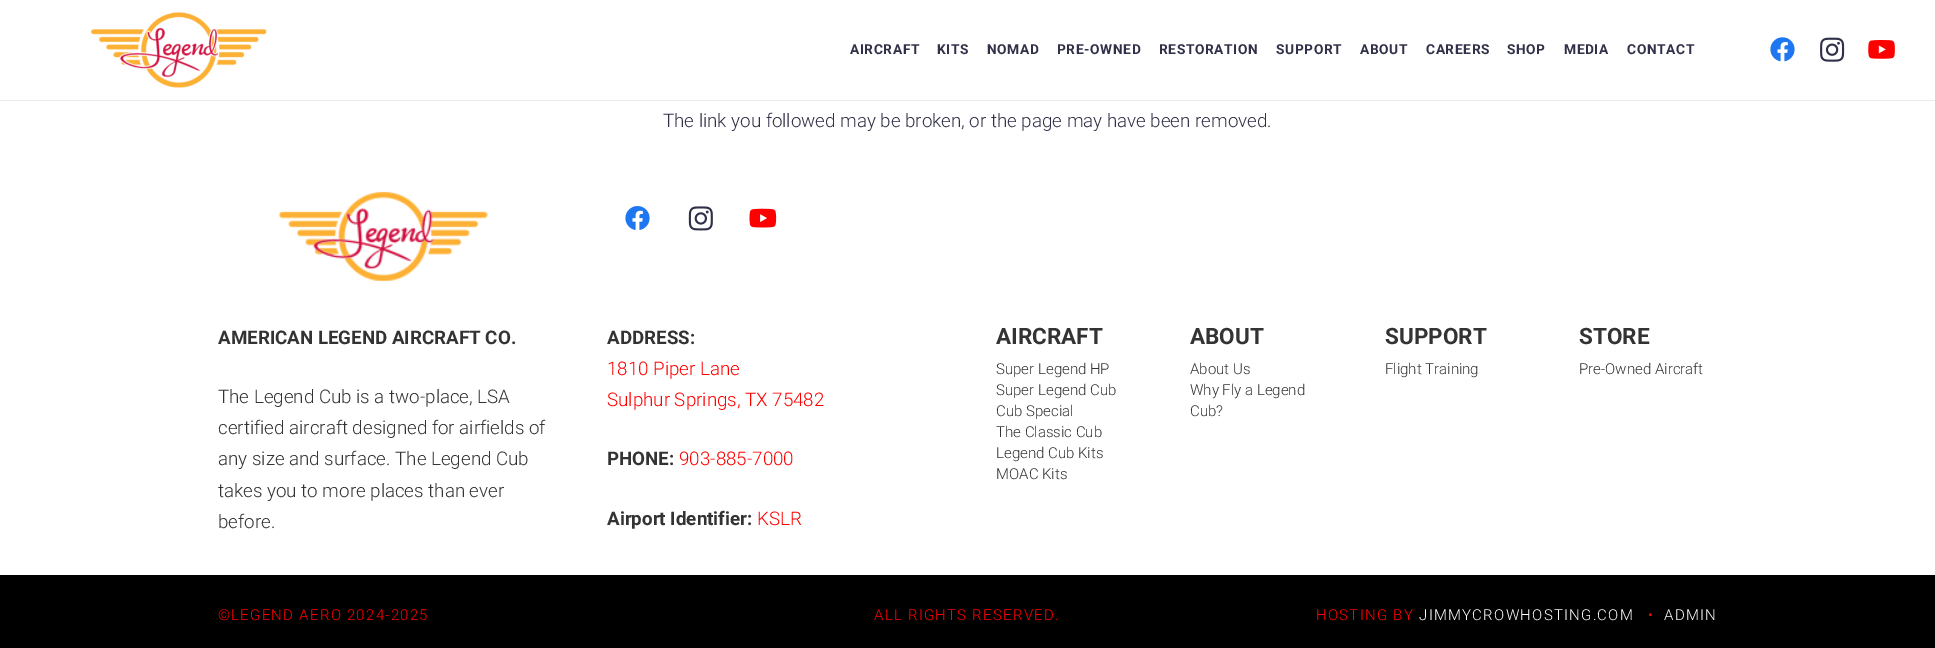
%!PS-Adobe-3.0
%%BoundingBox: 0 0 1935 648
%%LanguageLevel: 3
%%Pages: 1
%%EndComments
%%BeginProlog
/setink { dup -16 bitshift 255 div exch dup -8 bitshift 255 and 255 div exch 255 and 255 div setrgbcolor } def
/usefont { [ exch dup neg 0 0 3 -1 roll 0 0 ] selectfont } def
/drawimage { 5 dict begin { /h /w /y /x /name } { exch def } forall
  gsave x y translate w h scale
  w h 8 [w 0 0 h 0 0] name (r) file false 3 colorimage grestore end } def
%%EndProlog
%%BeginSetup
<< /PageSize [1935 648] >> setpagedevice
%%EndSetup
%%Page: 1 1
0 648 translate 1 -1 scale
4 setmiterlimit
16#FFFFFF setink
0 0 1935 648 rectfill
16#EBEBEB setink
0 100 1935 1 rectfill
(img1.raw) 91 12 176 76 drawimage
/Roboto-Bold 13.75 usefont
16#303048 setink
850 54 moveto 0.6 0 (AIRCRAFT) ashow
937 54 moveto 0.6 0 (KITS) ashow
987 54 moveto 0.6 0 (NOMAD) ashow
1057 54 moveto 0.6 0 (PRE-OWNED) ashow
1159 54 moveto 0.6 0 (RESTORATION) ashow
1276 54 moveto 0.6 0 (SUPPORT) ashow
1360 54 moveto 0.6 0 (ABOUT) ashow
1426 54 moveto 0.6 0 (CAREERS) ashow
1507 54 moveto 0.6 0 (SHOP) ashow
1564 54 moveto 0.6 0 (MEDIA) ashow
1627 54 moveto 0.6 0 (CONTACT) ashow
(img2.raw) 1770 37 25 25 drawimage
(img3.raw) 1820 37 25 25 drawimage
(img4.raw) 1868 40 27 19 drawimage
/Roboto-Light 18.75 usefont
663 127 moveto (The link you followed may be broken, or the page may have been removed.) show
(img5.raw) 278 191 210 90 drawimage
(img6.raw) 625 206 25 24 drawimage
(img7.raw) 688 206 25 25 drawimage
(img8.raw) 749 208 28 20 drawimage
/Roboto-Bold 18.75 usefont
16#333333 setink
218 344 moveto (AMERICAN LEGEND AIRCRAFT CO.) show
/Roboto-Light 18.75 usefont
[
    [(The Legend Cub is a two-place, LSA) 218 403]
    [(certified aircraft designed for airfields of) 218 434]
    [(any size and surface. The Legend Cub) 218 465]
    [(takes you to more places than ever) 218 497]
    [(before.) 218 528]
] { aload pop moveto show } forall
/Roboto-Bold 18.75 usefont
607 344 moveto (ADDRESS:) show
/Roboto-Light 18.75 usefont
16#FF0000 setink
607 375 moveto (1810 Piper Lane) show
607 406 moveto (Sulphur Springs, TX 75482) show
/Roboto-Bold 18.75 usefont
16#333333 setink
607 465 moveto (PHONE:) show
/Roboto-Light 18.75 usefont
16#FF0000 setink
679 465 moveto (903-885-7000) show
/Roboto-Bold 18.75 usefont
16#333333 setink
607 525 moveto (Airport Identifier:) show
/Roboto-Light 18.75 usefont
16#FF0000 setink
757 525 moveto (KSLR) show
/Roboto-Bold 22.5 usefont
16#333333 setink
996 344 moveto (AIRCRAFT) show
/Roboto-Light 15 usefont
[
    [(Super Legend HP) 996 374]
    [(Super Legend Cub) 996 395]
    [(Cub Special) 996 416]
    [(The Classic Cub) 996 437]
    [(Legend Cub Kits) 996 458]
    [(MOAC Kits) 996 479]
] { aload pop moveto show } forall
/Roboto-Bold 22.5 usefont
1190 344 moveto (ABOUT) show
/Roboto-Light 15 usefont
[
    [(About Us) 1190 374]
    [(Why Fly a Legend) 1190 395]
    [(Cub?) 1190 416]
] { aload pop moveto show } forall
/Roboto-Bold 22.5 usefont
1385 344 moveto (SUPPORT) show
/Roboto-Light 15 usefont
1385 374 moveto (Flight Training) show
/Roboto-Bold 22.5 usefont
1579 344 moveto (STORE) show
/Roboto-Light 15 usefont
1579 374 moveto (Pre-Owned Aircraft) show
16#000000 setink
0 575 1935 73 rectfill
16#FF0000 setink
218 620 moveto 1.25 0 (©LEGEND AERO 2024-2025) ashow
874 620 moveto 1.25 0 (ALL RIGHTS RESERVED.) ashow
1316 620 moveto 1.25 0 (HOSTING BY) ashow
16#FFFFFF setink
1419 620 moveto 1.25 0 (JIMMYCROWHOSTING.COM) ashow
16#FF0000 setink
1648 620 moveto 1.25 0 (•) ashow
16#FFFFFF setink
1664 620 moveto 1.25 0 (ADMIN) ashow
showpage
%%EOF
